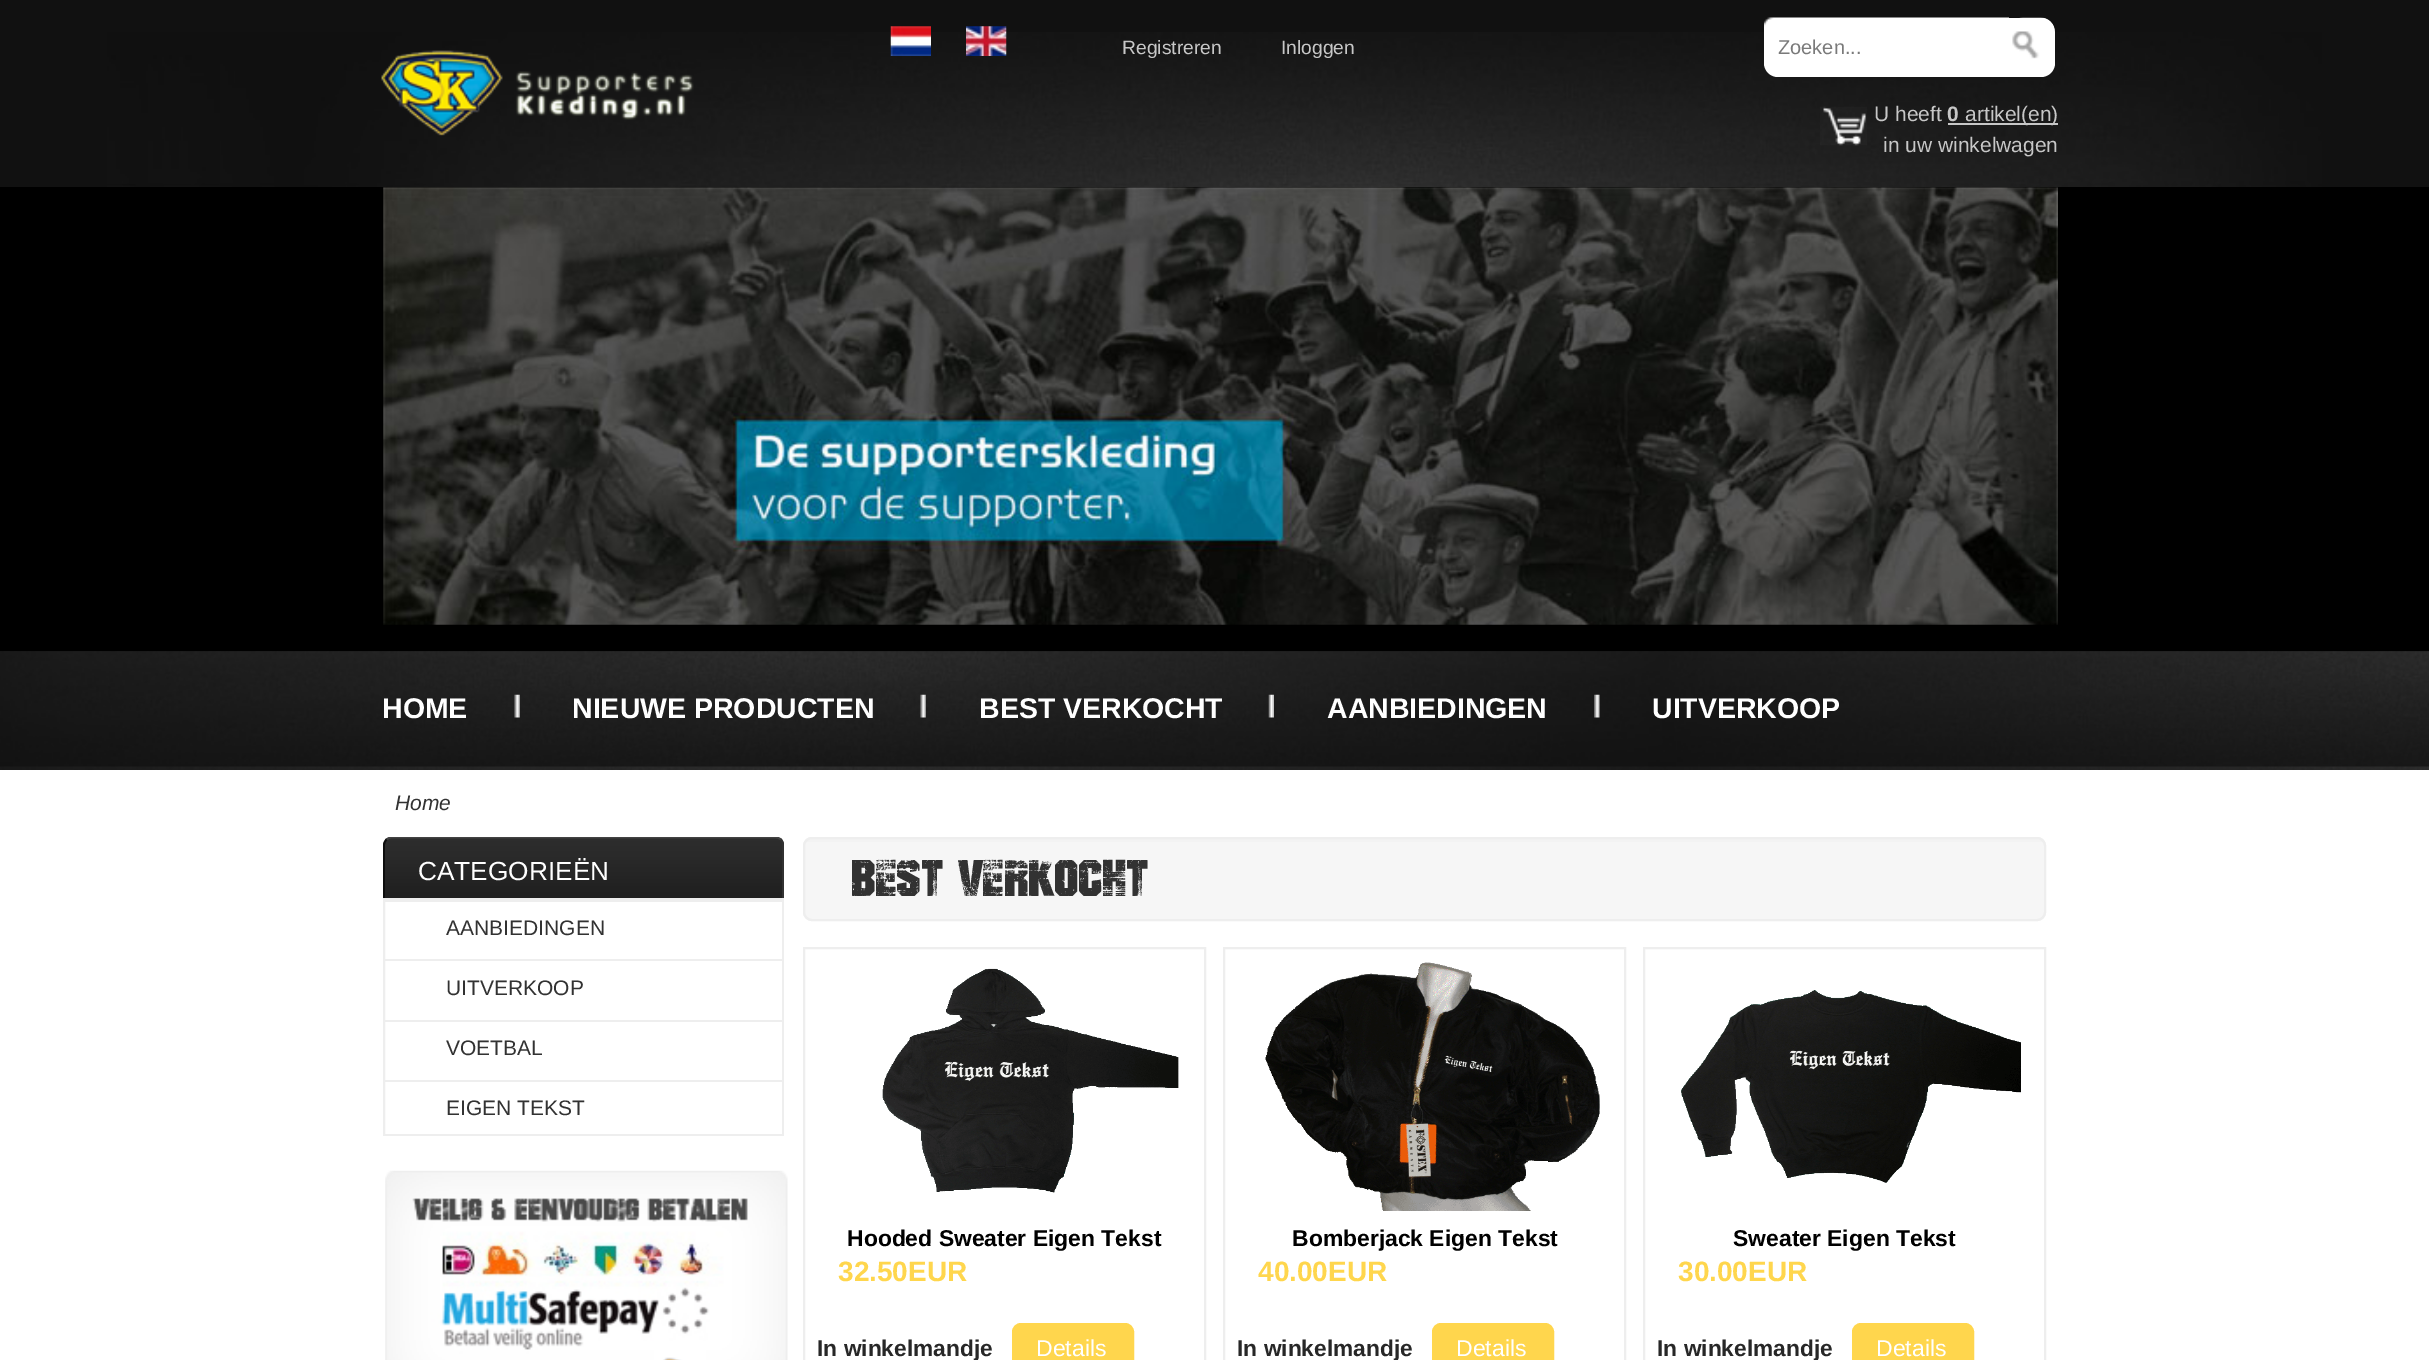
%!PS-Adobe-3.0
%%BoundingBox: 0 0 2429 1360
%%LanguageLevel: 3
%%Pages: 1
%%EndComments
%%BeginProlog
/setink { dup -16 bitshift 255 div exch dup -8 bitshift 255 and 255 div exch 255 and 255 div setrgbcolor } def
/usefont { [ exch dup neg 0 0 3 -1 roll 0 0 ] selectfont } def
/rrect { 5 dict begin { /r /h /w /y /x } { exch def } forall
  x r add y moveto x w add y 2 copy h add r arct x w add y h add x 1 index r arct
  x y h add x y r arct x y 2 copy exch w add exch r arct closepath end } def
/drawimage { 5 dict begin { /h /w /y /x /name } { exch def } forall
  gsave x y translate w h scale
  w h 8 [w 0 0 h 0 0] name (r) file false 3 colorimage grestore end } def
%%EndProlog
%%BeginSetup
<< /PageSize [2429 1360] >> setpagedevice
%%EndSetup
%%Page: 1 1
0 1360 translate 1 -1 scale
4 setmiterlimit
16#FFFFFF setink
0 0 2429 1360 rectfill
16#111111 setink
0 0 2429 187 rectfill
(img1.raw) 106 32 2217 155 drawimage
(img2.raw) 890 26 41 30 drawimage
(img3.raw) 966 26 41 30 drawimage
/LiberationSans-Regular 19.25 usefont
16#C7C7C7 setink
1122 54 moveto (Registreren) show
1281 54 moveto (Inloggen) show
16#FFFFFF setink
1764 18 291 59 14 rrect fill
(img4.raw) 1764 17 245 15 drawimage
/LiberationSans-Regular 20 usefont
16#7A7A7A setink
1778 54 moveto (Zoeken...) show
(img5.raw) 2012 17 43 42 drawimage
(img6.raw) 1820 106 47 40 drawimage
/LiberationSans-Regular 21 usefont
16#C7C7C7 setink
1874 121 moveto (U heeft) show
/LiberationSans-Bold 21 usefont
1947 121 moveto (0) show
1948 123 110 2 rectfill
/LiberationSans-Regular 21 usefont
1965 121 moveto (artikel\(en\)) show
1883 152 moveto (in uw winkelwagen) show
16#000000 setink
0 187 2429 464 rectfill
(img7.raw) 383 187 1675 438 drawimage
(img8.raw) 0 651 2429 119 drawimage
(img9.raw) 514 694 6 24 drawimage
/LiberationSans-Bold 28.5 usefont
16#FFFFFF setink
382 718 moveto (HOME) show
(img10.raw) 920 694 6 24 drawimage
572 718 moveto (NIEUWE PRODUCTEN) show
(img11.raw) 1268 694 6 24 drawimage
979 718 moveto (BEST VERKOCHT) show
(img12.raw) 1594 694 6 24 drawimage
1327 718 moveto (AANBIEDINGEN) show
1652 718 moveto (UITVERKOOP) show
/LiberationSans-Italic 21 usefont
16#323232 setink
395 810 moveto (Home) show
16#EEEEEE setink
383 1134 401 2 rectfill
(img13.raw) 383 838 401 60 drawimage
gsave
383 837 401 297 rectclip
16#434343 setink
1.8 setlinewidth
386.5 839.5 moveto 388 838 390 837.5 392 837.5 curveto 775 837.5 lineto 777.5 837.5 779.5 838 781 839.5 curveto stroke
grestore
16#313131 setink
1.8 setlinewidth
781 839.5 moveto 782.5 841 783 843 783 845 curveto 783 898 lineto 783 900 782.5 902 781 903.5 curveto 779.5 905 777.5 905.5 775 905.5 curveto 392 905.5 lineto 390 905.5 388 905 386.5 903.5 curveto stroke
16#0D0D0D setink
386.5 903.5 moveto 385 902 384 900 384 898 curveto 384 845 lineto 384 843 385 841 386.5 839.5 curveto stroke
/LiberationSans-Regular 26.25 usefont
16#FFFFFF setink
418 880 moveto (CATEGORIEËN) show
385 902 397 5 rectfill
gsave
383 837 401 297 rectclip
16#EEEEEE setink
2 setlinewidth
384 899 moveto 783 899 lineto 783 1134 lineto 783 1138.5 779.5 1142 775 1142 curveto 392 1142 lineto 387.5 1142 384 1138.5 384 1134 curveto closepath stroke
grestore
16#EEEEEE setink
385 900 397 2 rectfill
/LiberationSans-Regular 21 usefont
16#323232 setink
446 935 moveto (AANBIEDINGEN) show
16#EEEEEE setink
385 959 397 2 rectfill
16#323232 setink
446 995 moveto (UITVERKOOP) show
16#EEEEEE setink
385 1020 397 2 rectfill
16#323232 setink
446 1055 moveto (VOETBAL) show
16#EEEEEE setink
385 1080 397 2 rectfill
16#323232 setink
446 1115 moveto (EIGEN TEKST) show
(img14.raw) 385 1170 403 190 drawimage
16#F6F6F6 setink
803 837 1243 84 9 rrect fill
(img15.raw) 804 838 1241 4 drawimage
16#EEEEEE setink
2 setlinewidth
804 838 1241 82 8 rrect stroke
/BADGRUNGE-Regular 70 usefont
16#323232 setink
852 896 moveto (BEST VERKOCHT) show
16#EEEEEE setink
804 948 401 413 rectstroke
(img16.raw) 882 968 297 225 drawimage
/LiberationSans-Bold 22.9 usefont
16#000000 setink
847 1246 moveto (Hooded Sweater Eigen Tekst) show
/LiberationSans-Bold 28 usefont
16#FFD64D setink
838 1281 moveto (32.50EUR) show
/LiberationSans-Bold 22.75 usefont
16#272727 setink
817 1356 moveto (In winkelmandje) show
16#FFD64D setink
1013 1324 120 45 8 rrect gsave fill grestore
stroke
/LiberationSans-Regular 23 usefont
16#FFFFFF setink
1036 1356 moveto (Details) show
16#EEEEEE setink
1224 948 401 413 rectstroke
(img17.raw) 1265 962 335 249 drawimage
/LiberationSans-Bold 22.9 usefont
16#000000 setink
1292 1246 moveto (Bomberjack Eigen Tekst) show
/LiberationSans-Bold 28 usefont
16#FFD64D setink
1258 1281 moveto (40.00EUR) show
/LiberationSans-Bold 22.75 usefont
16#272727 setink
1237 1356 moveto (In winkelmandje) show
16#FFD64D setink
1433 1324 120 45 8 rrect gsave fill grestore
stroke
/LiberationSans-Regular 23 usefont
16#FFFFFF setink
1456 1356 moveto (Details) show
16#EEEEEE setink
1644 948 401 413 rectstroke
(img18.raw) 1681 990 340 193 drawimage
/LiberationSans-Bold 22.9 usefont
16#000000 setink
1733 1246 moveto (Sweater Eigen Tekst) show
/LiberationSans-Bold 28 usefont
16#FFD64D setink
1678 1281 moveto (30.00EUR) show
/LiberationSans-Bold 22.75 usefont
16#272727 setink
1657 1356 moveto (In winkelmandje) show
16#FFD64D setink
1853 1324 120 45 8 rrect gsave fill grestore
stroke
/LiberationSans-Regular 23 usefont
16#FFFFFF setink
1876 1356 moveto (Details) show
(img19.raw) 381 50 313 86 drawimage
showpage
%%EOF
